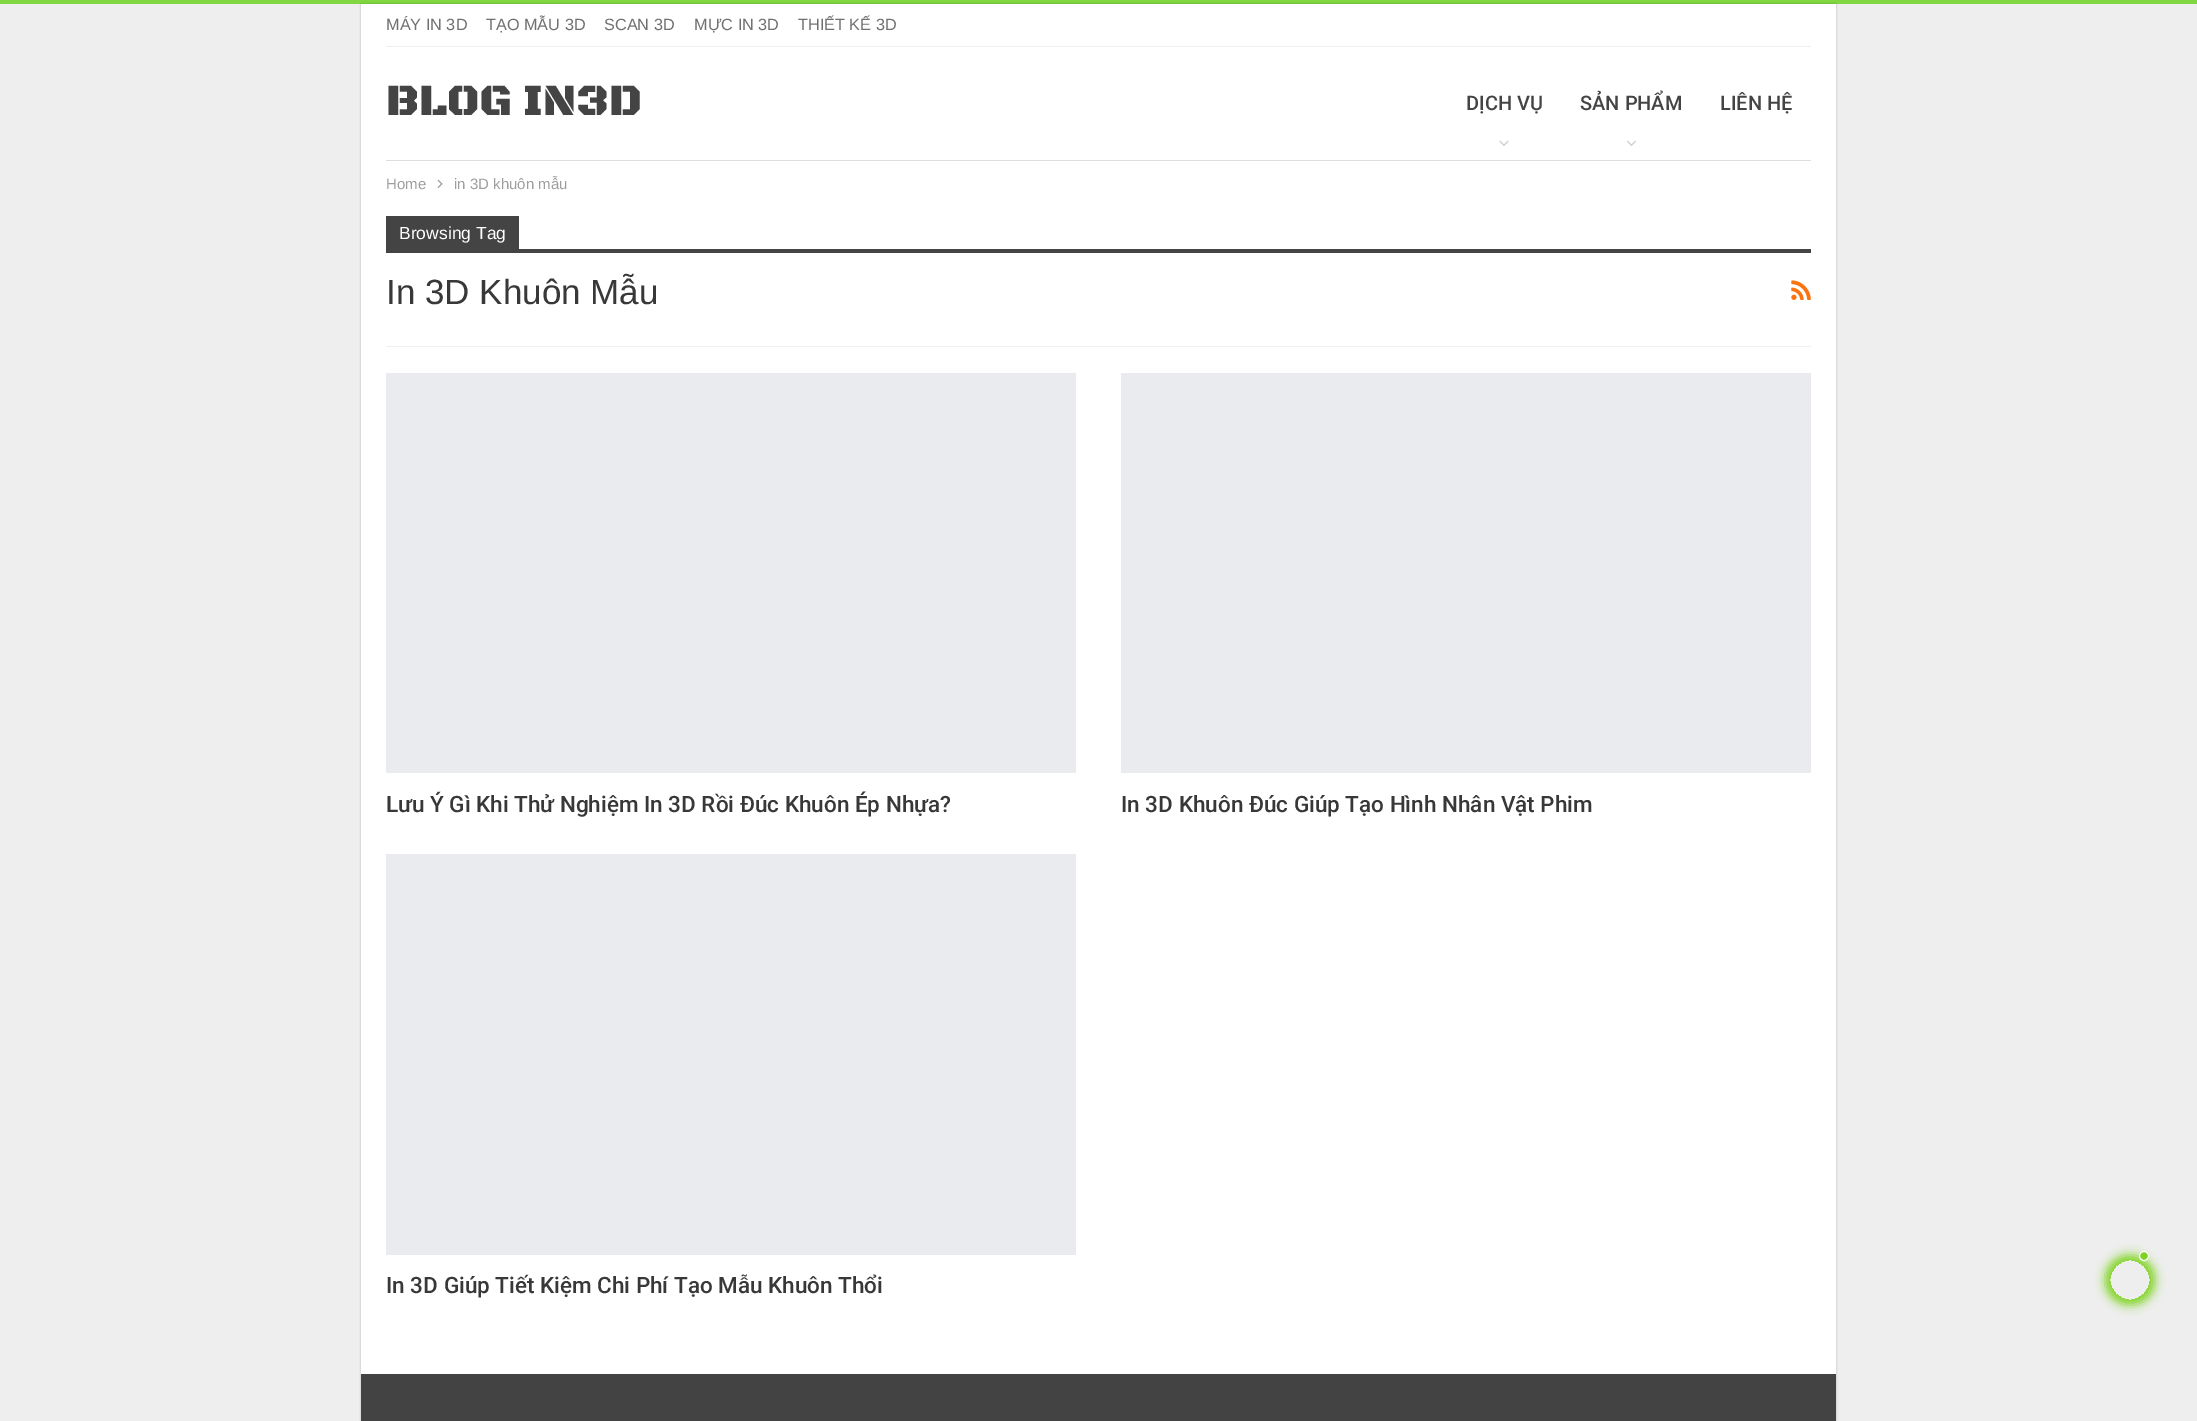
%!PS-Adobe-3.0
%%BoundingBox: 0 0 2197 1421
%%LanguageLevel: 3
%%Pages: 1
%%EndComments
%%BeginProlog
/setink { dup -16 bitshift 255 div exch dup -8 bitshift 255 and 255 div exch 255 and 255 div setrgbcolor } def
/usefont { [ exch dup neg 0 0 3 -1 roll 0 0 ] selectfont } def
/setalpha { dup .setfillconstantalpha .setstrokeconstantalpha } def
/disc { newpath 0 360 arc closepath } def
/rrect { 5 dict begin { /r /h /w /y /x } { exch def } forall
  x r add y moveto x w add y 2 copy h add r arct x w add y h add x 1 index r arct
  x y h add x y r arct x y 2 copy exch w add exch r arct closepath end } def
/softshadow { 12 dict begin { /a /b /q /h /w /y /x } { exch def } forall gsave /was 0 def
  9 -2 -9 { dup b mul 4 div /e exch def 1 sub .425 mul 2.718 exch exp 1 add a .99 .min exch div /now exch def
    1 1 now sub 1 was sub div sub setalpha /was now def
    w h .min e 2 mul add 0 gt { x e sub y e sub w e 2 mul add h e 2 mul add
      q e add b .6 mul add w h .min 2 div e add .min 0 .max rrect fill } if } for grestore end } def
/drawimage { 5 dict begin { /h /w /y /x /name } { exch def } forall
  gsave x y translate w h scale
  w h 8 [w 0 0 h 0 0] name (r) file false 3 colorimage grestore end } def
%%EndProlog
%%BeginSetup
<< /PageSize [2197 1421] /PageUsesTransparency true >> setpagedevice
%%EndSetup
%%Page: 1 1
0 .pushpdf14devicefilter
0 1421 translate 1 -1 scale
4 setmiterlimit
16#EEEEEE setink
0 0 2197 1421 rectfill
16#81D742 setink
0 0 2197 4 rectfill
16#000000 setink
361 4 1475 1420 0 1 0.27 softshadow
16#FFFFFF setink
361 4 1475 1370 rectfill
16#EFEFEF setink
386 46 1425 1 rectfill
/LiberationSans-Regular 16.25 usefont
16#707070 setink
[
    [(MÁY IN 3D) 386 30]
    [(TẠO MẪU 3D) 486 30]
    [(SCAN 3D) 604 30]
    [(MỰC IN 3D) 694 30]
    [(THIẾT KẾ 3D) 798 30]
] { aload pop moveto show } forall
16#DEDEDE setink
386 160 1425 1 rectfill
/BlackOpsOne-Black 45 usefont
16#444444 setink
386 115 moveto (BLOG IN3D) show
/Roboto-Medium 20 usefont
1466 110 moveto (DỊCH VỤ) show
(img1.raw) 1499 140 10 6 drawimage
1580 110 moveto (SẢN PHẨM) show
(img2.raw) 1627 140 9 6 drawimage
1720 110 moveto (LIÊN HỆ) show
/LiberationSans-Regular 15 usefont
16#9E9E9E setink
386 189 moveto (Home) show
(img3.raw) 437 179 6 9 drawimage
454 189 moveto (in 3D khuôn mẫu) show
16#F0F0F0 setink
386 346 1425 1 rectfill
16#444444 setink
386 216 133 33 rectfill
/LiberationSans-Regular 17.5 usefont
16#FFFFFF setink
399 239 moveto (Browsing Tag) show
16#444444 setink
386 249 1425 4 rectfill
/LiberationSans-Regular 35 usefont
16#383838 setink
386 304 moveto (In 3D Khuôn Mẫu) show
(img4.raw) 1791 280 20 20 drawimage
16#E9EBEE setink
386 373 690 400 rectfill
/Roboto-Medium 22.5 usefont
16#383838 setink
386 812 moveto (Lưu Ý Gì Khi Thử Nghiệm In 3D Rồi Đúc Khuôn Ép Nhựa?) show
16#E9EBEE setink
1121 373 690 400 rectfill
16#383838 setink
1121 812 moveto (In 3D Khuôn Đúc Giúp Tạo Hình Nhân Vật Phim) show
16#E9EBEE setink
386 854 690 401 rectfill
16#383838 setink
386 1293 moveto (In 3D Giúp Tiết Kiệm Chi Phí Tạo Mẫu Khuôn Thổi) show
16#434343 setink
361 1374 1475 47 rectfill
gsave
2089 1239 moveto 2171 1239 lineto 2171 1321 lineto 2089 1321 lineto closepath 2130 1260 moveto 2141 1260 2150 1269 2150 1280 curveto 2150 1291 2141 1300 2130 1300 curveto 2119 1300 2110 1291 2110 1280 curveto 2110 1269 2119 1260 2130 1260 curveto closepath eoclip newpath
16#7ED321 setink
2105 1255 50 50 25 5 1 softshadow
grestore
16#7ED321 setink
2144 1256 4.5 disc gsave fill grestore
16#FFFFFF setink
stroke
.poppdf14devicefilter showpage
%%EOF
